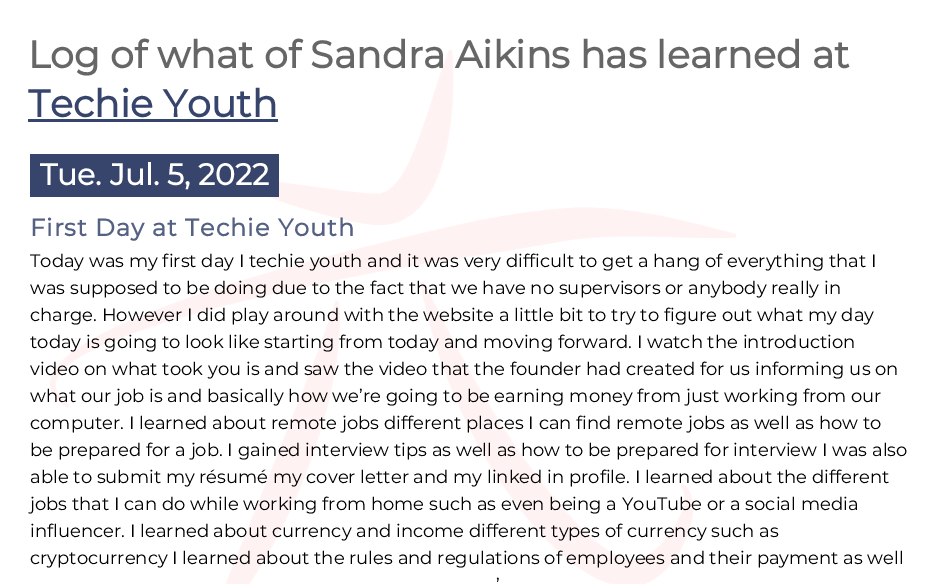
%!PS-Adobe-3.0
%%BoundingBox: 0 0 939 584
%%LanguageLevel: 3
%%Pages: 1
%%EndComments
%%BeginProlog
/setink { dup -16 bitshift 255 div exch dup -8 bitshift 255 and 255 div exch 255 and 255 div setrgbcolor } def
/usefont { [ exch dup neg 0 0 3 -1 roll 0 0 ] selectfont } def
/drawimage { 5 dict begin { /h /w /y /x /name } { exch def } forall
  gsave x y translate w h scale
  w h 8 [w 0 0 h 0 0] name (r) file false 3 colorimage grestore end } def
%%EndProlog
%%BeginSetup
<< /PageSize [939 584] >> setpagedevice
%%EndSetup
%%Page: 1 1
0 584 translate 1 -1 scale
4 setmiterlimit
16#FFFFFF setink
0 0 939 584 rectfill
(img1.raw) 50 50 686 534 drawimage
/Montserrat-Bold 38 usefont
16#666666 setink
28 68 moveto (Log of what of Sandra Aikins has learned at) show
16#37456C setink
28 117 moveto (Techie Youth) show
28 119 250 3 rectfill
30 154 249 43 rectfill
/Montserrat-Bold 30 usefont
16#FFFFFF setink
40 185 moveto (Tue. Jul. 5, 2022) show
/Montserrat-Bold 24 usefont
16#556182 setink
30 236 moveto 1 0 (First Day at Techie Youth) ashow
/Montserrat-Thin 18 usefont
16#000000 setink
[
    [(Today was my first day I techie youth and it was very difficult to get a hang of everything that I) 30 267]
    [(was supposed to be doing due to the fact that we have no supervisors or anybody really in) 30 294]
    [(charge. However I did play around with the website a little bit to try to figure out what my day) 30 321]
    [(today is going to look like starting from today and moving forward. I watch the introduction) 30 348]
    [(video on what took you is and saw the video that the founder had created for us informing us on) 30 375]
    [(what our job is and basically how we’re going to be earning money from just working from our) 30 402]
    [(computer. I learned about remote jobs different places I can find remote jobs as well as how to) 30 429]
    [(be prepared for a job. I gained interview tips as well as how to be prepared for interview I was also) 30 456]
    [(able to submit my résumé my cover letter and my linked in profile. I learned about the different) 30 483]
    [(jobs that I can do while working from home such as even being a YouTube or a social media) 30 510]
    [(influencer. I learned about currency and income different types of currency such as) 30 537]
    [(cryptocurrency I learned about the rules and regulations of employees and their payment as well) 30 564]
    [(’) 496 591]
] { aload pop moveto show } forall
showpage
%%EOF
